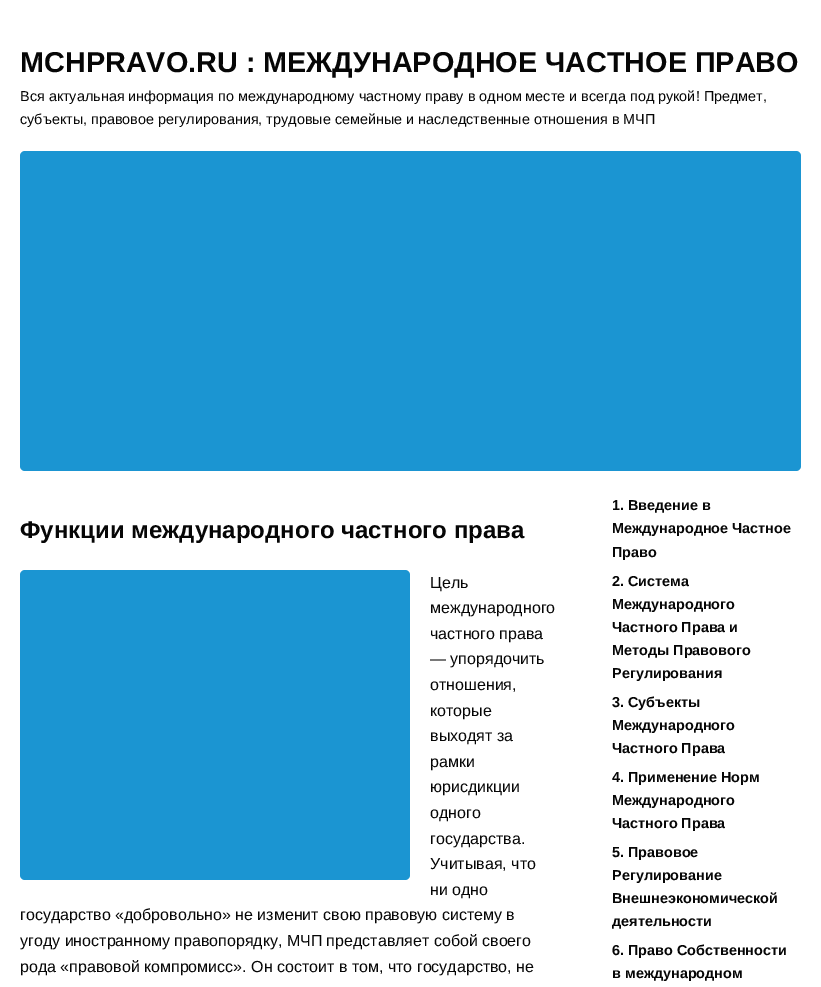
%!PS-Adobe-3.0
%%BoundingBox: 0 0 821 987
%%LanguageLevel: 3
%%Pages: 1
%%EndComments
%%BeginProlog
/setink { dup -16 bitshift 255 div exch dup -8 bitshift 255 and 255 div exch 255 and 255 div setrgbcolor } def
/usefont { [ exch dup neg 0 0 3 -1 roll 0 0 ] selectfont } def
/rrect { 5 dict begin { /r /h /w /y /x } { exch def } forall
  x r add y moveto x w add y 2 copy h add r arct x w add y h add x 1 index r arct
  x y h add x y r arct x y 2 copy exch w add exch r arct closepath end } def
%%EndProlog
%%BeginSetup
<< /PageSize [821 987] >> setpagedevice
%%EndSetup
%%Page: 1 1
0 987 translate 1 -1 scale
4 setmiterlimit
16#FFFFFF setink
0 0 821 987 rectfill
/LiberationSans-Bold 28.8 usefont
16#060606 setink
20 72 moveto (MCHPRAVO.RU : МЕЖДУНАРОДНОЕ ЧАСТНОЕ ПРАВО) show
/LiberationSans-Regular 14.4 usefont
20 101 moveto (Вся актуальная информация по международному частному праву в одном месте и всегда под рукой! Предмет,) show
20 124 moveto (субъекты, правовое регулирования, трудовые семейные и наследственные отношения в МЧП) show
16#1B95D2 setink
20 151 781 320 5 rrect fill
/LiberationSans-Bold 24 usefont
16#060606 setink
20 538 moveto (Функции международного частного права) show
16#1B95D2 setink
20 570 390 310 5 rrect fill
/LiberationSans-Regular 16 usefont
16#060606 setink
[
    [(Цель) 430 588]
    [(международного) 430 613]
    [(частного права) 430 639]
    [(— упорядочить) 430 664]
    [(отношения,) 430 690]
    [(которые) 430 716]
    [(выходят за) 430 741]
    [(рамки) 430 767]
    [(юрисдикции) 430 792]
    [(одного) 430 818]
    [(государства.) 430 844]
    [(Учитывая, что) 430 869]
    [(ни одно) 430 895]
    [(государство «добровольно» не изменит свою правовую систему в) 20 920]
    [(угоду иностранному правопорядку, МЧП представляет собой своего) 20 946]
    [(рода «правовой компромисс». Он состоит в том, что государство, не) 20 972]
] { aload pop moveto show } forall
/LiberationSans-Bold 14.4 usefont
[
    [(1. Введение в) 612 510]
    [(Международное Частное) 612 533]
    [(Право) 612 557]
    [(2. Система) 612 586]
    [(Международного) 612 609]
    [(Частного Права и) 612 632]
    [(Методы Правового) 612 655]
    [(Регулирования) 612 678]
    [(3. Субъекты) 612 707]
    [(Международного) 612 730]
    [(Частного Права) 612 753]
    [(4. Применение Норм) 612 782]
    [(Международного) 612 805]
    [(Частного Права) 612 828]
    [(5. Правовое) 612 857]
    [(Регулирование) 612 880]
    [(Внешнеэкономической) 612 903]
    [(деятельности) 612 926]
    [(6. Право Собственности) 612 955]
    [(в международном) 612 978]
] { aload pop moveto show } forall
showpage
%%EOF
